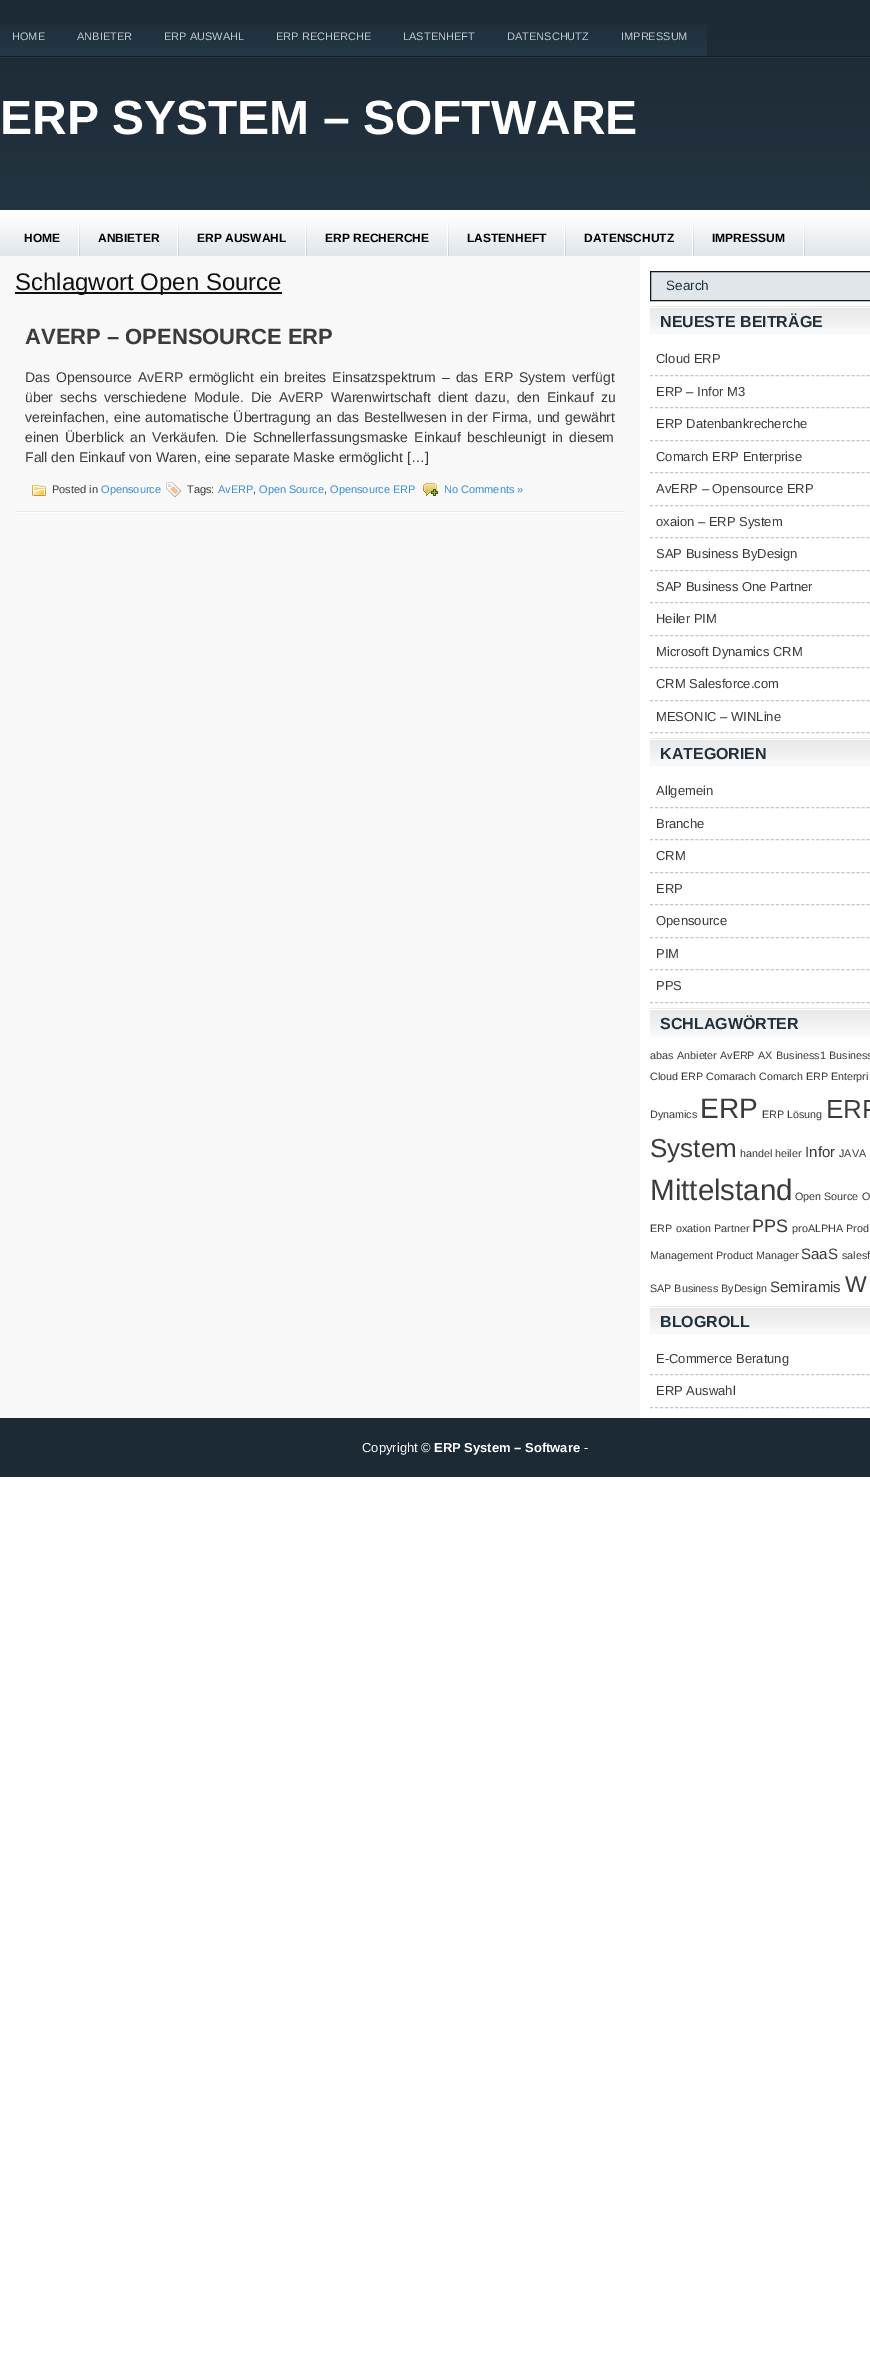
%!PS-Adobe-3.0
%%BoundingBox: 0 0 870 2365
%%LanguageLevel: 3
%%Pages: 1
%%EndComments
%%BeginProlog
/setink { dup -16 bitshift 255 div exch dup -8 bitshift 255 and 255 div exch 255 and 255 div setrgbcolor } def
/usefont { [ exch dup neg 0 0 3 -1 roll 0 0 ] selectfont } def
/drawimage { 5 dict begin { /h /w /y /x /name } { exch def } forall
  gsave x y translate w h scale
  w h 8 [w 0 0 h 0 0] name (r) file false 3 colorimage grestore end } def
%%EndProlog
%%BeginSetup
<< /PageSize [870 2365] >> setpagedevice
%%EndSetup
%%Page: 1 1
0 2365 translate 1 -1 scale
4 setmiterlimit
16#FFFFFF setink
0 0 870 2365 rectfill
(img1.raw) 0 0 870 210 drawimage
(img2.raw) 0 24 707 32 drawimage
/LiberationSans-Regular 11 usefont
16#BECAD4 setink
[
    [(HOME) 12 40]
    [(ANBIETER) 77 40]
    [(ERP AUSWAHL) 164 40]
    [(ERP RECHERCHE) 276 40]
    [(LASTENHEFT) 403 40]
    [(DATENSCHUTZ) 507 40]
    [(IMPRESSUM) 621 40]
] { aload pop moveto show } forall
/LiberationSans-Bold 48 usefont
16#FFFFFF setink
0 134 moveto (ERP SYSTEM – SOFTWARE) show
(img3.raw) 0 210 870 46 drawimage
(img4.raw) 78 221 2 35 drawimage
/LiberationSans-Bold 12 usefont
16#000000 setink
24 242 moveto (HOME) show
(img4.raw) 177 221 2 35 drawimage
98 242 moveto (ANBIETER) show
(img4.raw) 305 221 2 35 drawimage
197 242 moveto (ERP AUSWAHL) show
(img4.raw) 447 221 2 35 drawimage
325 242 moveto (ERP RECHERCHE) show
(img4.raw) 564 221 2 35 drawimage
467 242 moveto (LASTENHEFT) show
(img4.raw) 692 221 2 35 drawimage
584 242 moveto (DATENSCHUTZ) show
(img4.raw) 803 221 2 35 drawimage
712 242 moveto (IMPRESSUM) show
16#F8F8F8 setink
0 256 640 1162 rectfill
16#111111 setink
15 292 267 2 rectfill
/LiberationSans-Regular 24 usefont
15 290 moveto (Schlagwort Open Source) show
(img5.raw) 15 511 610 2 drawimage
/LiberationSans-Bold 22 usefont
16#3C3A3A setink
25 344 moveto (AVERP – OPENSOURCE ERP) show
/LiberationSans-Regular 14 usefont
25 382 moveto 2.1 0 32 (Das Opensource AvERP ermöglicht ein breites Einsatzspektrum – das ERP System verfügt) widthshow
25 402 moveto 3.1 0 32 (über sechs verschiedene Module. Die AvERP Warenwirtschaft dient dazu, den Einkauf zu) widthshow
25 422 moveto 1 0 32 (vereinfachen, eine automatische Übertragung an das Bestellwesen in der Firma, und gewährt) widthshow
25 442 moveto 2.25 0 32 (einen Überblick an Verkäufen. Die Schnellerfassungsmaske Einkauf beschleunigt in diesem) widthshow
25 462 moveto (Fall den Einkauf von Waren, eine separate Maske ermöglicht […]) show
(img6.raw) 32 485 14 11 drawimage
/LiberationSans-Regular 11 usefont
52 493 moveto (Posted in) show
16#368DD8 setink
101 493 moveto (Opensource) show
(img7.raw) 166 482 16 16 drawimage
16#3C3A3A setink
187 493 moveto (Tags:) show
16#368DD8 setink
218 493 moveto (AvERP) show
16#3C3A3A setink
253 493 moveto (,) show
16#368DD8 setink
259 493 moveto (Open Source) show
16#3C3A3A setink
324 493 moveto (,) show
16#368DD8 setink
330 493 moveto (Opensource ERP) show
(img8.raw) 423 483 15 13 drawimage
444 493 moveto (No Comments ») show
16#E1E6EA setink
650.5 271.5 moveto 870.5 271.5 lineto 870.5 300.5 lineto 650.5 300.5 lineto closepath gsave fill grestore
16#10171D setink
stroke
/LiberationSans-Regular 13.5 usefont
16#21313D setink
666 290 moveto (Search) show
(img9.raw) 650 306 220 29 drawimage
/LiberationSans-Bold 16 usefont
660 327 moveto (NEUESTE BEITRÄGE) show
16#C6C6C6 setink
[3 2.04] 0 setdash
650 375.5 moveto 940 375.5 lineto stroke
/LiberationSans-Regular 13 usefont
16#3C3A3A setink
656 363 moveto (Cloud ERP) show
16#C6C6C6 setink
650 407.5 moveto 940 407.5 lineto stroke
16#3C3A3A setink
656 396 moveto (ERP – Infor M3) show
16#C6C6C6 setink
650 440.5 moveto 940 440.5 lineto stroke
16#3C3A3A setink
656 428 moveto (ERP Datenbankrecherche) show
16#C6C6C6 setink
650 472.5 moveto 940 472.5 lineto stroke
16#3C3A3A setink
656 461 moveto (Comarch ERP Enterprise) show
16#C6C6C6 setink
650 505.5 moveto 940 505.5 lineto stroke
16#3C3A3A setink
656 493 moveto (AvERP – Opensource ERP) show
16#C6C6C6 setink
650 537.5 moveto 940 537.5 lineto stroke
16#3C3A3A setink
656 526 moveto (oxaion – ERP System) show
16#C6C6C6 setink
650 570.5 moveto 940 570.5 lineto stroke
16#3C3A3A setink
656 558 moveto (SAP Business ByDesign) show
16#C6C6C6 setink
650 602.5 moveto 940 602.5 lineto stroke
16#3C3A3A setink
656 591 moveto (SAP Business One Partner) show
16#C6C6C6 setink
650 635.5 moveto 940 635.5 lineto stroke
16#3C3A3A setink
656 623 moveto (Heiler PIM) show
16#C6C6C6 setink
650 667.5 moveto 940 667.5 lineto stroke
16#3C3A3A setink
656 656 moveto (Microsoft Dynamics CRM) show
16#C6C6C6 setink
650 700.5 moveto 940 700.5 lineto stroke
16#3C3A3A setink
656 688 moveto (CRM Salesforce.com) show
16#C6C6C6 setink
650 732.5 moveto 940 732.5 lineto stroke
16#3C3A3A setink
656 721 moveto (MESONIC – WINLine) show
(img9.raw) 650 738 220 29 drawimage
/LiberationSans-Bold 16 usefont
16#21313D setink
660 759 moveto (KATEGORIEN) show
16#C6C6C6 setink
650 807.5 moveto 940 807.5 lineto stroke
/LiberationSans-Regular 13 usefont
16#3C3A3A setink
656 795 moveto (Allgemein) show
16#C6C6C6 setink
650 839.5 moveto 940 839.5 lineto stroke
16#3C3A3A setink
656 828 moveto (Branche) show
16#C6C6C6 setink
650 872.5 moveto 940 872.5 lineto stroke
16#3C3A3A setink
656 860 moveto (CRM) show
16#C6C6C6 setink
650 904.5 moveto 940 904.5 lineto stroke
16#3C3A3A setink
656 893 moveto (ERP) show
16#C6C6C6 setink
650 937.5 moveto 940 937.5 lineto stroke
16#3C3A3A setink
656 925 moveto (Opensource) show
16#C6C6C6 setink
650 969.5 moveto 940 969.5 lineto stroke
16#3C3A3A setink
656 958 moveto (PIM) show
16#C6C6C6 setink
650 1002.5 moveto 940 1002.5 lineto stroke
16#3C3A3A setink
656 990 moveto (PPS) show
(img9.raw) 650 1008 220 29 drawimage
/LiberationSans-Bold 16 usefont
16#21313D setink
660 1029 moveto (SCHLAGWÖRTER) show
/LiberationSans-Regular 10.75 usefont
16#3C3A3A setink
[
    [(abas) 650 1059]
    [(Anbieter) 677 1059]
    [(AvERP) 720 1059]
    [(AX) 758 1059]
    [(Business1) 776 1059]
    [(Business) 829 1059]
    [(Cloud ERP) 650 1080]
    [(Comarach) 706 1080]
    [(Comarch ERP Enterpri) 759 1080]
    [(Dynamics) 650 1118]
] { aload pop moveto show } forall
/LiberationSans-Regular 28 usefont
700 1118 moveto (ERP) show
/LiberationSans-Regular 10.75 usefont
762 1118 moveto (ERP Lösung) show
/LiberationSans-Regular 26 usefont
826 1118 moveto (ERP) show
650 1157 moveto (System) show
/LiberationSans-Regular 10.75 usefont
740 1157 moveto (handel) show
775 1157 moveto (heiler) show
/LiberationSans-Regular 15 usefont
805 1157 moveto (Infor) show
/LiberationSans-Regular 10.75 usefont
839 1157 moveto (JAVA) show
/LiberationSans-Regular 29.5 usefont
650 1200 moveto (Mittelstand) show
/LiberationSans-Regular 10.75 usefont
[
    [(Open Source) 795 1200]
    [(O) 862 1200]
    [(ERP) 650 1232]
    [(oxation) 676 1232]
    [(Partner) 714 1232]
] { aload pop moveto show } forall
/LiberationSans-Regular 18 usefont
752 1232 moveto (PPS) show
/LiberationSans-Regular 10.75 usefont
[
    [(proALPHA) 792 1232]
    [(Prod) 846 1232]
    [(Management) 650 1259]
    [(Product Manager) 716 1259]
] { aload pop moveto show } forall
/LiberationSans-Regular 15 usefont
801 1259 moveto (SaaS) show
/LiberationSans-Regular 10.75 usefont
842 1259 moveto (salesf) show
650 1292 moveto (SAP Business ByDesign) show
/LiberationSans-Regular 15 usefont
770 1292 moveto (Semiramis) show
/LiberationSans-Regular 23 usefont
845 1292 moveto (W) show
(img9.raw) 650 1306 220 29 drawimage
/LiberationSans-Bold 16 usefont
16#21313D setink
660 1327 moveto (BLOGROLL) show
16#C6C6C6 setink
650 1374.5 moveto 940 1374.5 lineto stroke
/LiberationSans-Regular 13 usefont
16#3C3A3A setink
656 1363 moveto (E-Commerce Beratung) show
16#C6C6C6 setink
650 1407.5 moveto 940 1407.5 lineto stroke
16#3C3A3A setink
656 1395 moveto (ERP Auswahl) show
16#1C2A35 setink
0 1418 870 59 rectfill
16#FFFFFF setink
362 1452 moveto (Copyright ©) show
/LiberationSans-Bold 13 usefont
434 1452 moveto (ERP System – Software) show
/LiberationSans-Regular 13 usefont
584 1452 moveto (-) show
showpage
%%EOF
